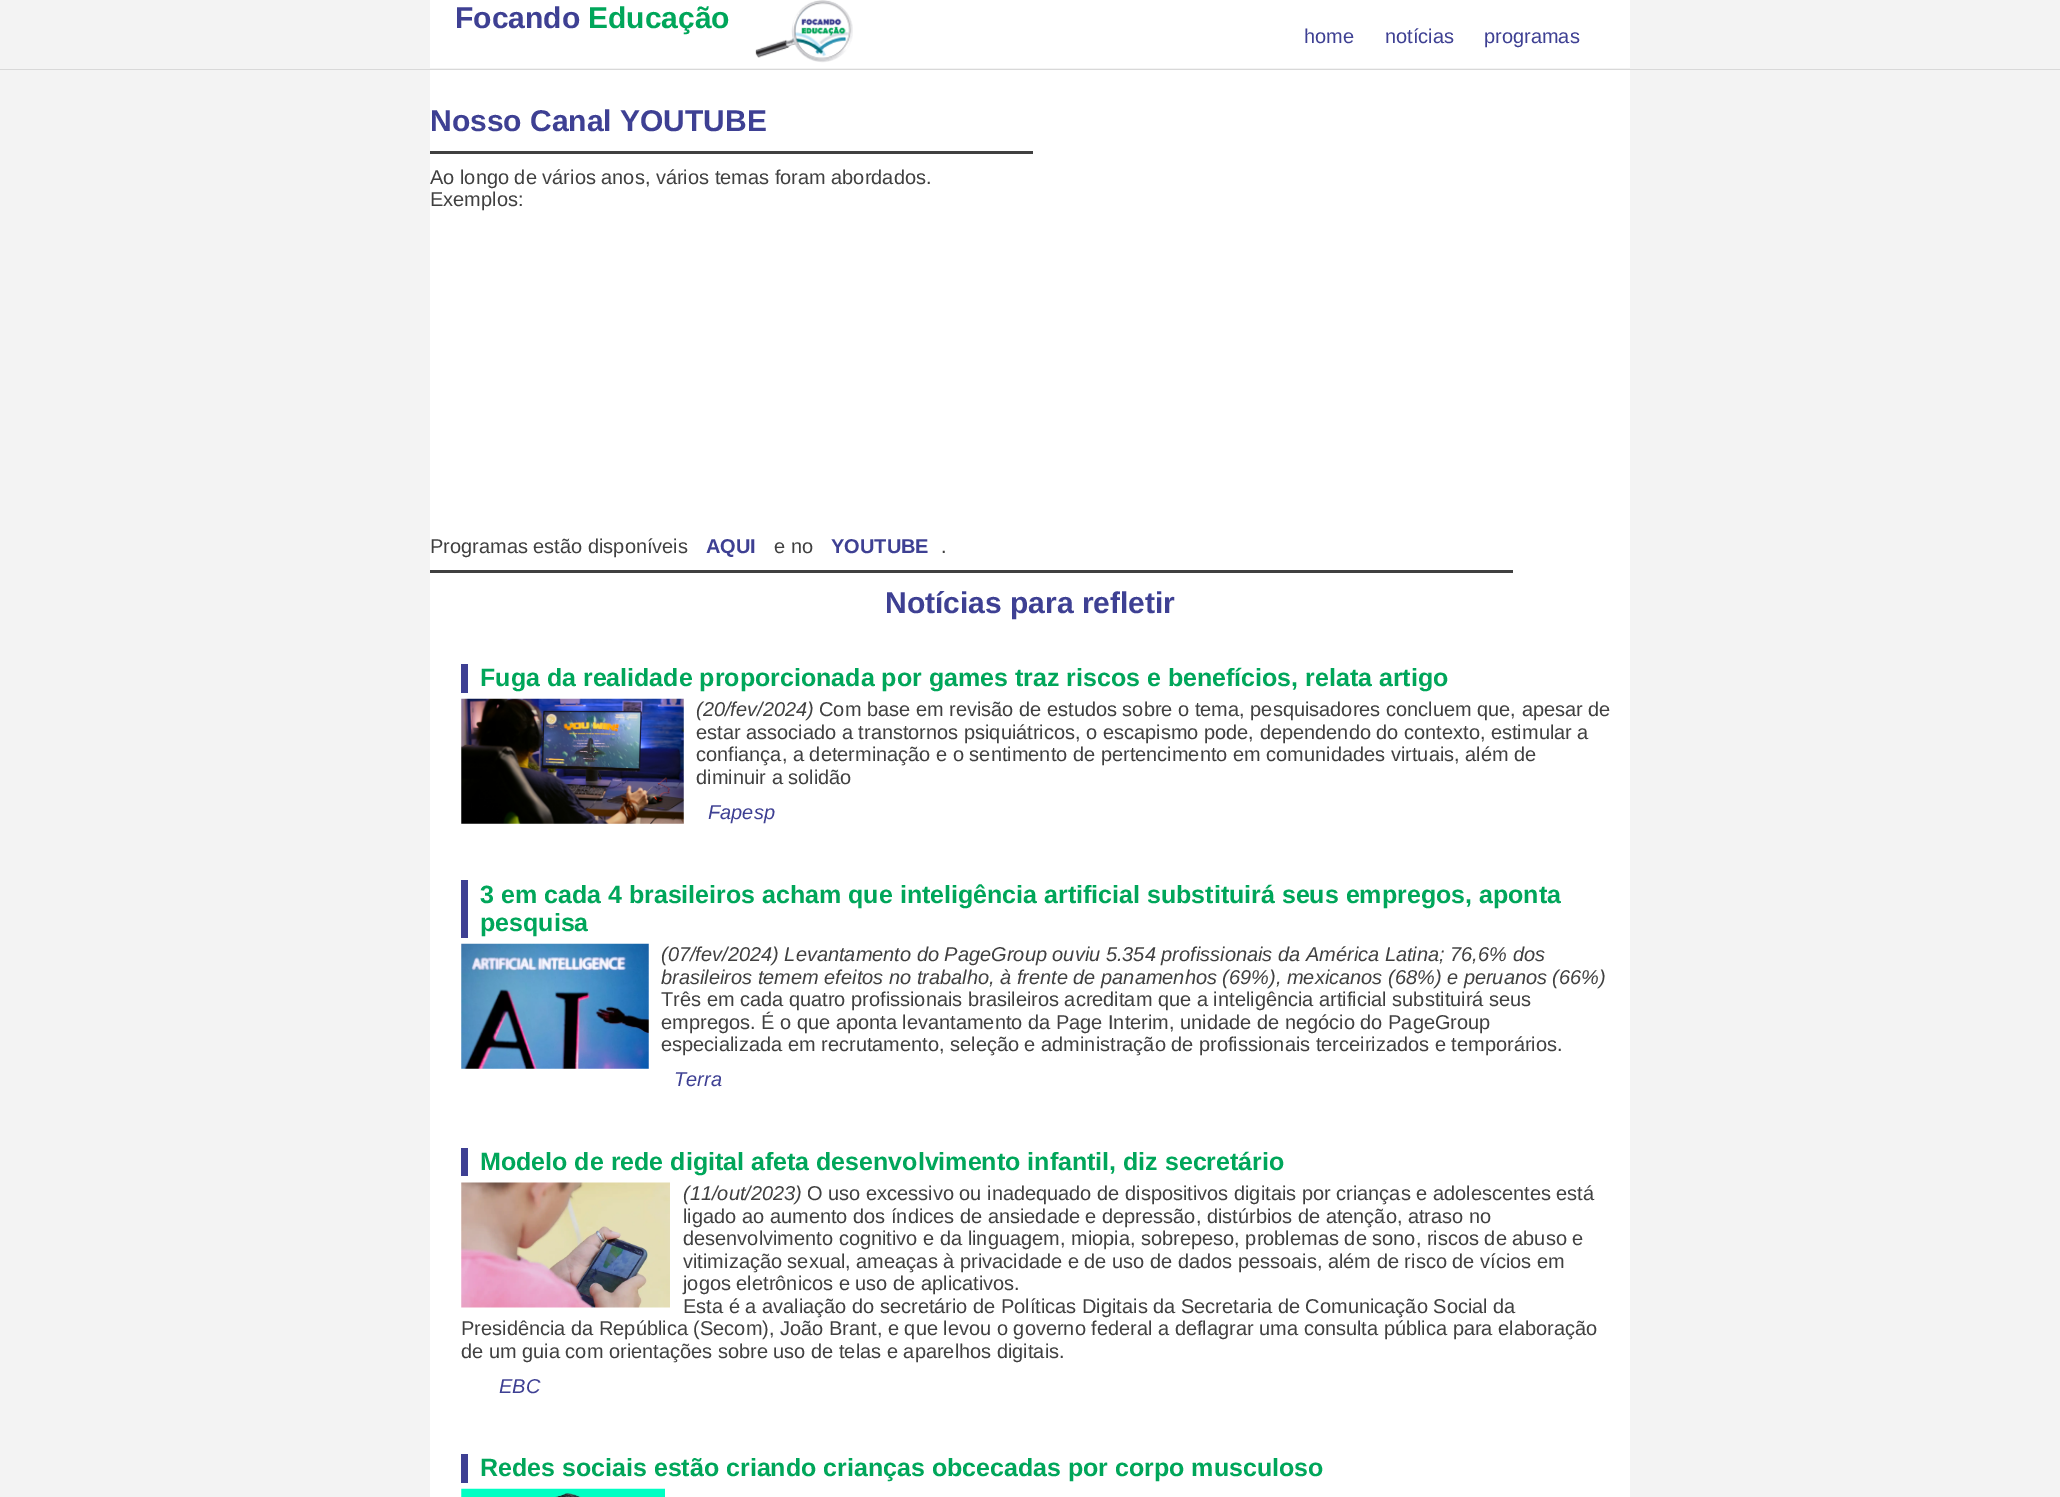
%!PS-Adobe-3.0
%%BoundingBox: 0 0 2060 1497
%%LanguageLevel: 3
%%Pages: 1
%%EndComments
%%BeginProlog
/setink { dup -16 bitshift 255 div exch dup -8 bitshift 255 and 255 div exch 255 and 255 div setrgbcolor } def
/usefont { [ exch dup neg 0 0 3 -1 roll 0 0 ] selectfont } def
/drawimage { 5 dict begin { /h /w /y /x /name } { exch def } forall
  gsave x y translate w h scale
  w h 8 [w 0 0 h 0 0] name (r) file false 3 colorimage grestore end } def
%%EndProlog
%%BeginSetup
<< /PageSize [2060 1497] >> setpagedevice
%%EndSetup
%%Page: 1 1
0 1497 translate 1 -1 scale
4 setmiterlimit
16#F3F3F3 setink
0 0 2060 1497 rectfill
16#D8D8D8 setink
0 69 2060 1 rectfill
16#FFFFFF setink
430 0 1200 68 rectfill
/LiberationSans-Bold 30 usefont
16#3E4093 setink
455 28 moveto (Focando) show
16#00A65A setink
588 28 moveto (Educação) show
(img1.raw) 755 0 98 63 drawimage
/LiberationSans-Regular 20 usefont
16#3E4093 setink
[
    [(home) 1304 43]
    [(notícias) 1385 43]
    [(programas) 1484 43]
] { aload pop moveto show } forall
16#FFFFFF setink
430 70 1200 1427 rectfill
/LiberationSans-Bold 30 usefont
16#3E4093 setink
430 131 moveto (Nosso Canal YOUTUBE) show
16#404040 setink
430 151 603 3 rectfill
/LiberationSans-Regular 20 usefont
[
    [(Ao longo de vários anos, vários temas foram abordados.) 430 184]
    [(Exemplos:) 430 206]
    [(Programas estão disponíveis) 430 553]
] { aload pop moveto show } forall
/LiberationSans-Bold 20 usefont
16#3E4093 setink
706 553 moveto (AQUI) show
/LiberationSans-Regular 20 usefont
16#404040 setink
774 553 moveto (e no) show
/LiberationSans-Bold 20 usefont
16#3E4093 setink
831 553 moveto (YOUTUBE) show
/LiberationSans-Regular 20 usefont
16#404040 setink
941 553 moveto (.) show
430 570 1083 3 rectfill
/LiberationSans-Bold 30 usefont
16#3E4093 setink
885 613 moveto (Notícias para refletir) show
461 664 7 29 rectfill
/LiberationSans-Bold 25 usefont
16#00A65A setink
480 686 moveto (Fuga da realidade proporcionada por games traz riscos e benefícios, relata artigo) show
(img2.raw) 461 698 223 126 drawimage
/LiberationSans-Italic 20 usefont
16#404040 setink
696 716 moveto (\(20/fev/2024\)) show
/LiberationSans-Regular 20 usefont
[
    [(Com base em revisão de estudos sobre o tema, pesquisadores concluem que, apesar de) 819 716]
    [(estar associado a transtornos psiquiátricos, o escapismo pode, dependendo do contexto, estimular a) 696 739]
    [(confiança, a determinação e o sentimento de pertencimento em comunidades virtuais, além de) 696 761]
    [(diminuir a solidão) 696 784]
] { aload pop moveto show } forall
/LiberationSans-Italic 20 usefont
16#3E4093 setink
708 819 moveto (Fapesp) show
461 880 7 58 rectfill
/LiberationSans-Bold 25 usefont
16#00A65A setink
480 903 moveto (3 em cada 4 brasileiros acham que inteligência artificial substituirá seus empregos, aponta) show
480 931 moveto (pesquisa) show
(img3.raw) 461 943 188 126 drawimage
/LiberationSans-Italic 20 usefont
16#404040 setink
661 961 moveto (\(07/fev/2024\) Levantamento do PageGroup ouviu 5.354 profissionais da América Latina; 76,6% dos) show
661 984 moveto (brasileiros temem efeitos no trabalho, à frente de panamenhos \(69%\), mexicanos \(68%\) e peruanos \(66%\)) show
/LiberationSans-Regular 20 usefont
[
    [(Três em cada quatro profissionais brasileiros acreditam que a inteligência artificial substituirá seus) 661 1006]
    [(empregos. É o que aponta levantamento da Page Interim, unidade de negócio do PageGroup) 661 1029]
    [(especializada em recrutamento, seleção e administração de profissionais terceirizados e temporários.) 661 1051]
] { aload pop moveto show } forall
/LiberationSans-Italic 20 usefont
16#3E4093 setink
674 1086 moveto (Terra) show
461 1148 7 28 rectfill
/LiberationSans-Bold 25 usefont
16#00A65A setink
480 1170 moveto (Modelo de rede digital afeta desenvolvimento infantil, diz secretário) show
(img4.raw) 461 1182 209 126 drawimage
/LiberationSans-Italic 20 usefont
16#404040 setink
683 1200 moveto (\(11/out/2023\)) show
/LiberationSans-Regular 20 usefont
[
    [(O uso excessivo ou inadequado de dispositivos digitais por crianças e adolescentes está) 807 1200]
    [(ligado ao aumento dos índices de ansiedade e depressão, distúrbios de atenção, atraso no) 683 1223]
    [(desenvolvimento cognitivo e da linguagem, miopia, sobrepeso, problemas de sono, riscos de abuso e) 683 1245]
    [(vitimização sexual, ameaças à privacidade e de uso de dados pessoais, além de risco de vícios em) 683 1268]
    [(jogos eletrônicos e uso de aplicativos.) 683 1290]
    [(Esta é a avaliação do secretário de Políticas Digitais da Secretaria de Comunicação Social da) 683 1313]
    [(Presidência da República \(Secom\), João Brant, e que levou o governo federal a deflagrar uma consulta pública para elaboração) 461 1335]
    [(de um guia com orientações sobre uso de telas e aparelhos digitais.) 461 1358]
] { aload pop moveto show } forall
/LiberationSans-Italic 20 usefont
16#3E4093 setink
499 1393 moveto (EBC) show
461 1454 7 29 rectfill
/LiberationSans-Bold 25 usefont
16#00A65A setink
480 1476 moveto (Redes sociais estão criando crianças obcecadas por corpo musculoso) show
(img5.raw) 461 1488 204 9 drawimage
showpage
%%EOF
